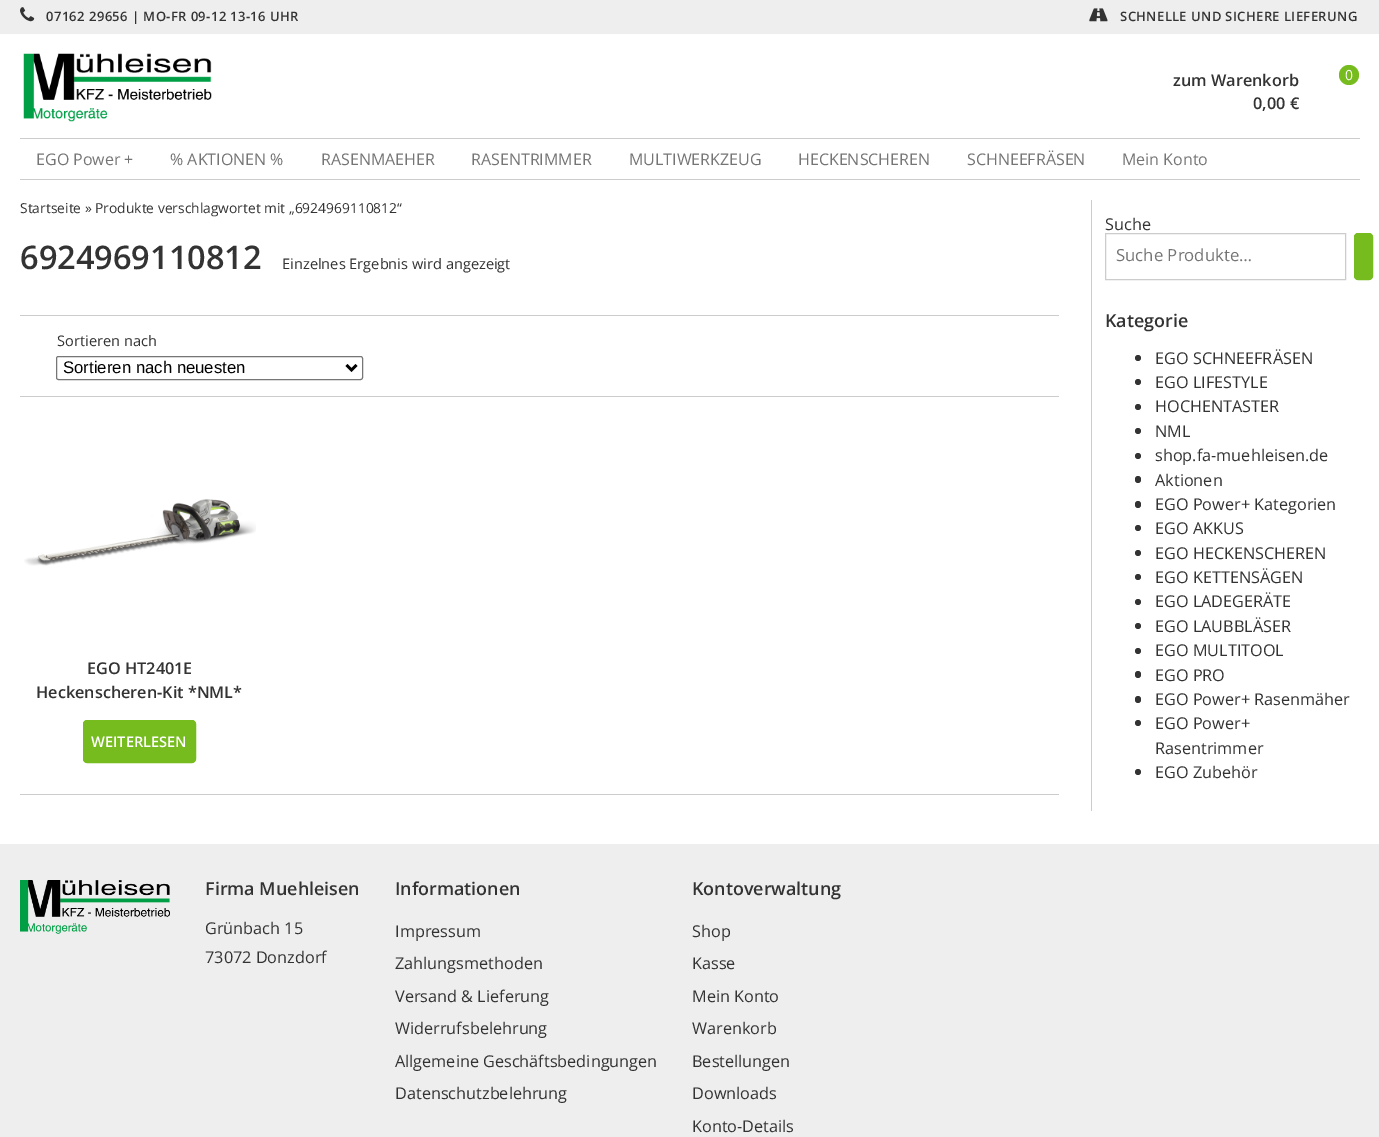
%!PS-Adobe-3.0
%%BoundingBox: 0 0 1379 1137
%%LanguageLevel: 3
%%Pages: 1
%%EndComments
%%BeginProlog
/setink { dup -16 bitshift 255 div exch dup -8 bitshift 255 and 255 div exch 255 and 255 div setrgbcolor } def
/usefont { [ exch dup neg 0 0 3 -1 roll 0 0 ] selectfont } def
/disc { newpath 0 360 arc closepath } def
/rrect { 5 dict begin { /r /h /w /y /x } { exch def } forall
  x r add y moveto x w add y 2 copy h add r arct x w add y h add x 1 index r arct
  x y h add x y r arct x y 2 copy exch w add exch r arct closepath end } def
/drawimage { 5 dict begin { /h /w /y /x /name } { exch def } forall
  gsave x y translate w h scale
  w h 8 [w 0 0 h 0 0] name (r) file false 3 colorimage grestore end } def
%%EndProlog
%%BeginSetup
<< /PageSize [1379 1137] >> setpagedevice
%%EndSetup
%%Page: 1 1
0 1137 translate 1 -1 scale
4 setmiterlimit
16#FFFFFF setink
0 0 1379 1137 rectfill
16#EEEEEE setink
0 0 1379 34 rectfill
(img1.raw) 20 7 15 15 drawimage
/OpenSans-SemiBold 13 usefont
16#333333 setink
46 21 moveto 0.4 0 (07162 29656 | MO-FR 09-12 13-16 UHR) ashow
(img2.raw) 1089 8 19 14 drawimage
1120 21 moveto 0.4 0 (SCHNELLE UND SICHERE LIEFERUNG) ashow
(img3.raw) 23 53 189 69 drawimage
/OpenSans-SemiBold 16.25 usefont
1173 86 moveto (zum Warenkorb) show
1253 109 moveto (0,00 €) show
16#77BC1F setink
1349 75 10 disc fill
/OpenSans-Regular 14 usefont
16#FFFFFF setink
1345 80 moveto (0) show
16#CCCCCC setink
20 138 1340 1 rectfill
20 179 1340 1 rectfill
/OpenSans-Regular 16 usefont
16#757575 setink
[
    [(EGO Power +) 36 165]
    [(% AKTIONEN %) 170 165]
    [(RASENMAEHER) 321 165]
    [(RASENTRIMMER) 471 165]
    [(MULTIWERKZEUG) 629 165]
    [(HECKENSCHEREN) 798 165]
    [(SCHNEEFRÄSEN) 967 165]
    [(Mein Konto) 1122 165]
] { aload pop moveto show } forall
16#CCCCCC setink
1091 200 1 611 rectfill
/OpenSans-Regular 13.8 usefont
16#333333 setink
20 213 moveto (Startseite » Produkte verschlagwortet mit „6924969110812“) show
/OpenSans-SemiBold 32.5 usefont
20 269 moveto (6924969110812) show
/OpenSans-Regular 14.6 usefont
282 269 moveto (Einzelnes Ergebnis wird angezeigt) show
16#CCCCCC setink
20 315 1039 1 rectfill
16#333333 setink
57 346 moveto (Sortieren nach) show
16#767676 setink
56.5 356.5 306 23 2 rrect stroke
16#000000 setink
2.5 setlinewidth
346.5 365 moveto 351.5 370 lineto 356.5 365 lineto stroke
/LiberationSans-Regular 16.75 usefont
63 373 moveto (Sortieren nach neuesten) show
16#CCCCCC setink
20 396 1039 1 rectfill
20 794 1039 1 rectfill
(img4.raw) 24 499 232 67 drawimage
/OpenSans-SemiBold 16.25 usefont
16#333333 setink
87 674 moveto (EGO HT2401E) show
36 698 moveto (Heckenscheren-Kit *NML*) show
16#77BC1F setink
83.5 720.5 112 42 3.5 rrect gsave fill grestore
1 setlinewidth
stroke
/OpenSans-SemiBold 14.6 usefont
16#FFFFFF setink
91 747 moveto (WEITERLESEN) show
/OpenSans-Regular 16.25 usefont
16#333333 setink
1105 230 moveto (Suche) show
16#CCCCCC setink
1105.5 233.5 240 46 rectstroke
/OpenSans-Regular 16.75 usefont
16#757575 setink
1116 261 moveto (Suche Produkte…) show
16#77BC1F setink
1354.5 233.5 18 46 3.5 rrect gsave fill grestore
stroke
/OpenSans-SemiBold 17.9 usefont
16#333333 setink
1105 327 moveto (Kategorie) show
1138 358 3 disc fill
/OpenSans-Regular 16.25 usefont
1155 364 moveto (EGO SCHNEEFRÄSEN) show
1138 382 3 disc fill
1155 388 moveto (EGO LIFESTYLE) show
1138 407 3 disc fill
1155 412 moveto (HOCHENTASTER) show
1138 431 3 disc fill
1155 437 moveto (NML) show
1138 456 3 disc fill
1155 461 moveto (shop.fa-muehleisen.de) show
1135 476 6 7 3 rrect fill
1155 486 moveto (Aktionen) show
1135 501 6 7 3 rrect fill
1155 510 moveto (EGO Power+ Kategorien) show
1138 528 3 disc fill
1155 534 moveto (EGO AKKUS) show
1138 553 3 disc fill
1155 559 moveto (EGO HECKENSCHEREN) show
1138 577 3 disc fill
1155 583 moveto (EGO KETTENSÄGEN) show
1138 602 3 disc fill
1155 607 moveto (EGO LADEGERÄTE) show
1138 626 3 disc fill
1155 632 moveto (EGO LAUBBLÄSER) show
1138 651 3 disc fill
1155 656 moveto (EGO MULTITOOL) show
1135 671 6 7 3 rrect fill
1155 681 moveto (EGO PRO) show
1135 696 6 7 3 rrect fill
1155 705 moveto (EGO Power+ Rasenmäher) show
1138 723 3 disc fill
1155 729 moveto (EGO Power+) show
1155 754 moveto (Rasentrimmer) show
1138 772 3 disc fill
1155 778 moveto (EGO Zubehör) show
16#EEEEEE setink
0 844 1379 293 rectfill
(img5.raw) 20 880 150 54 drawimage
/OpenSans-SemiBold 17.9 usefont
16#333333 setink
205 895 moveto (Firma Muehleisen) show
/OpenSans-Regular 16.25 usefont
205 934 moveto (Grünbach 15) show
205 963 moveto (73072 Donzdorf) show
/OpenSans-SemiBold 17.9 usefont
395 895 moveto (Informationen) show
/OpenSans-Regular 16.25 usefont
[
    [(Impressum) 395 937]
    [(Zahlungsmethoden) 395 969]
    [(Versand & Lieferung) 395 1002]
    [(Widerrufsbelehrung) 395 1034]
    [(Allgemeine Geschäftsbedingungen) 395 1067]
    [(Datenschutzbelehrung) 395 1099]
] { aload pop moveto show } forall
/OpenSans-SemiBold 17.9 usefont
692 895 moveto (Kontoverwaltung) show
/OpenSans-Regular 16.25 usefont
[
    [(Shop) 692 937]
    [(Kasse) 692 969]
    [(Mein Konto) 692 1002]
    [(Warenkorb) 692 1034]
    [(Bestellungen) 692 1067]
    [(Downloads) 692 1099]
    [(Konto-Details) 692 1132]
] { aload pop moveto show } forall
showpage
%%EOF
